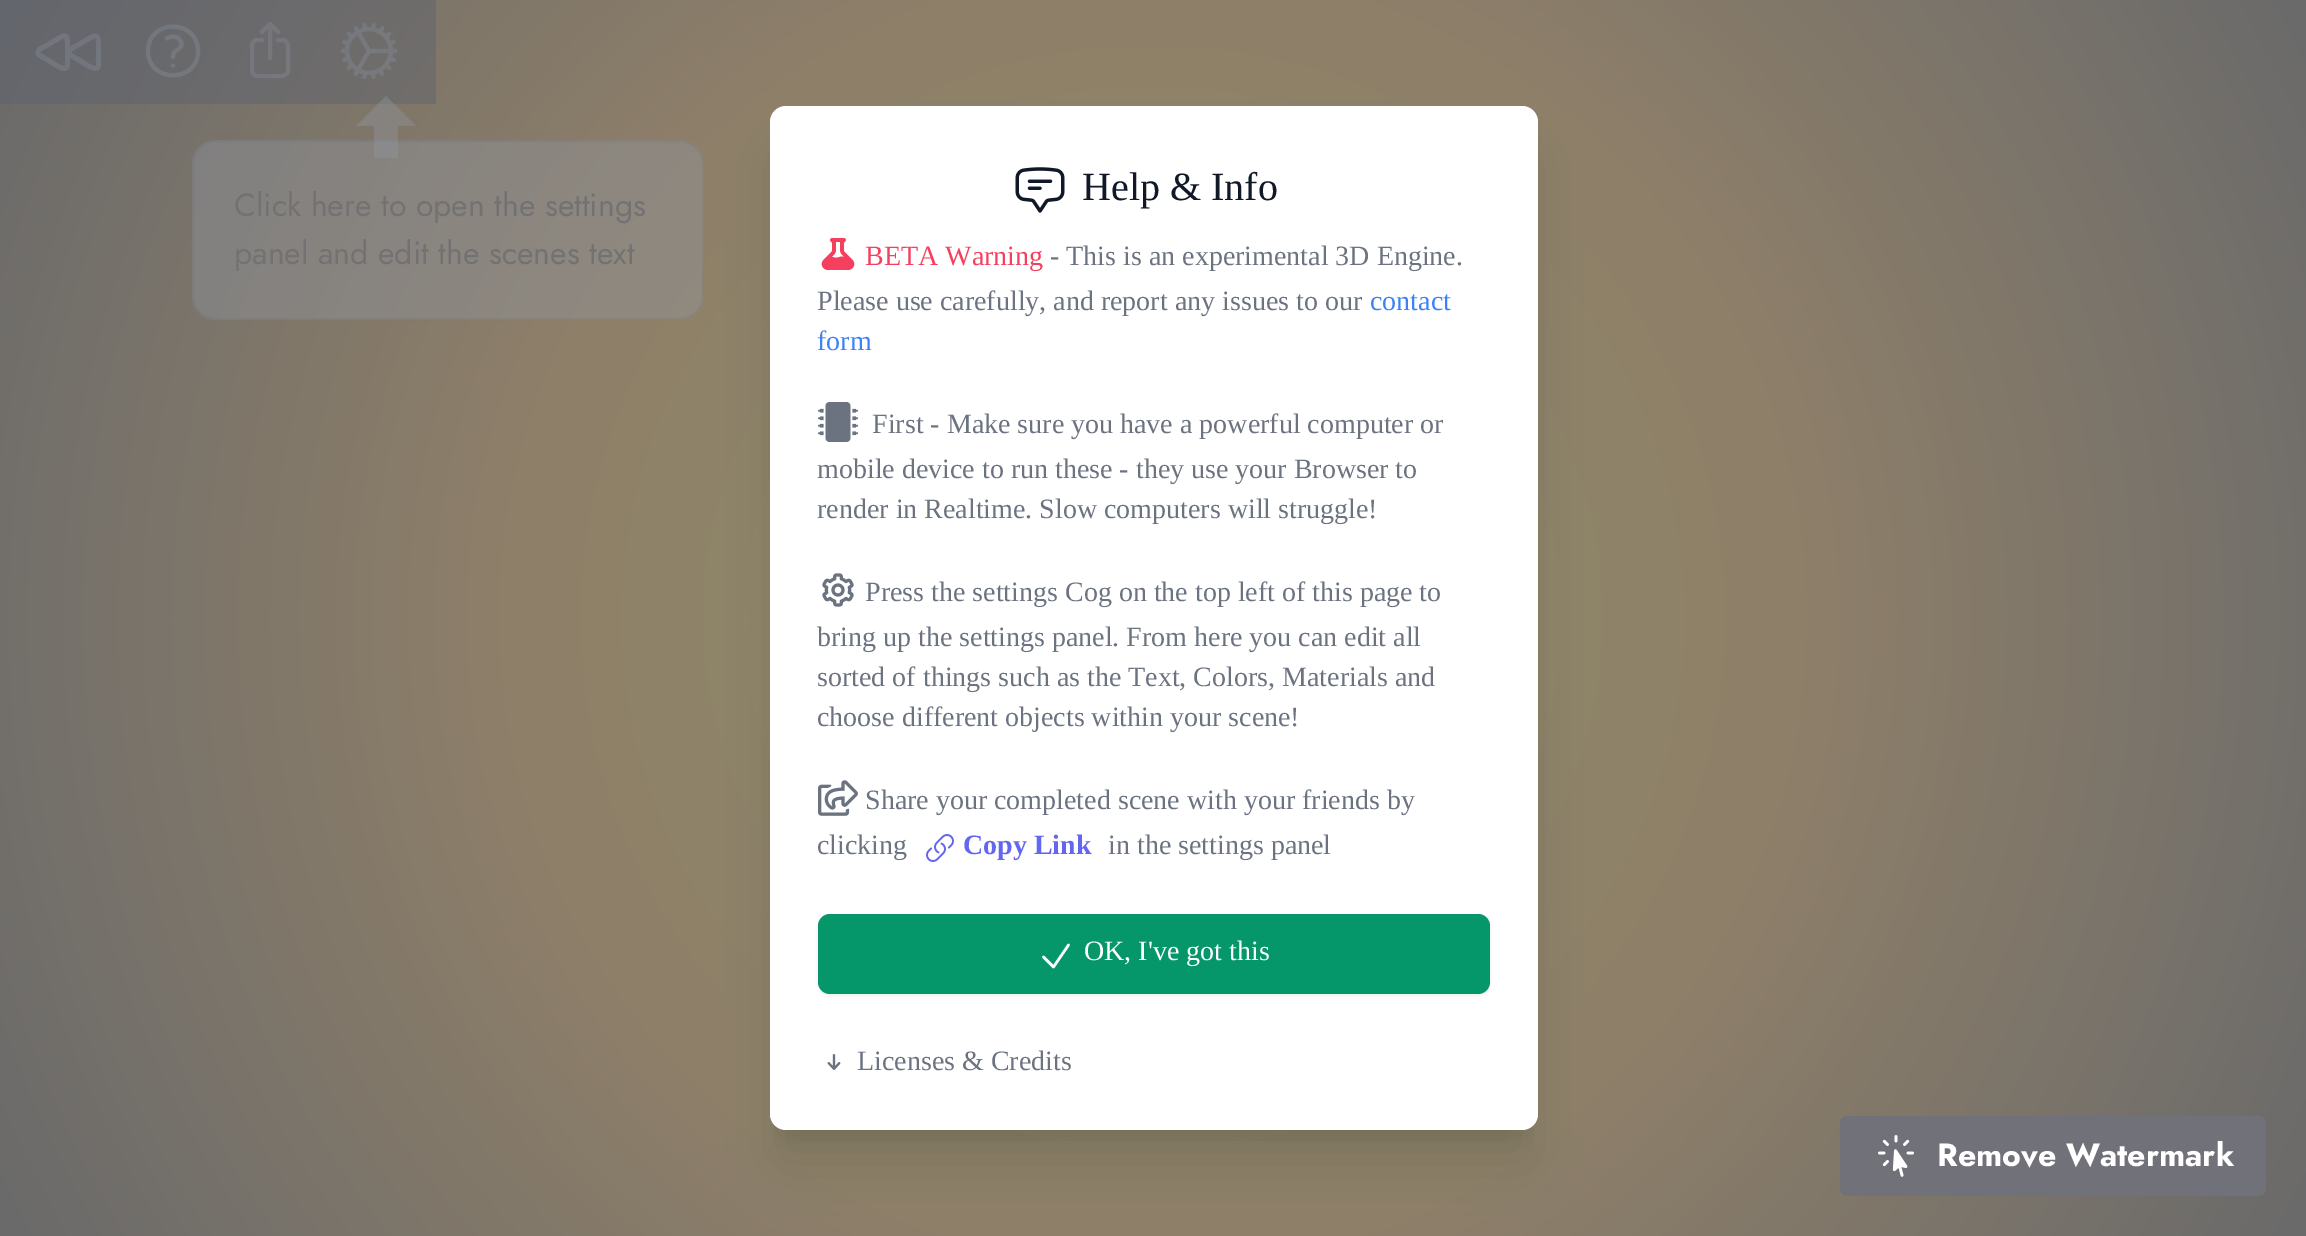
%!PS-Adobe-3.0
%%BoundingBox: 0 0 2306 1236
%%LanguageLevel: 3
%%Pages: 1
%%EndComments
%%BeginProlog
/setink { dup -16 bitshift 255 div exch dup -8 bitshift 255 and 255 div exch 255 and 255 div setrgbcolor } def
/usefont { [ exch dup neg 0 0 3 -1 roll 0 0 ] selectfont } def
/setalpha { dup .setfillconstantalpha .setstrokeconstantalpha } def
/rrect { 5 dict begin { /r /h /w /y /x } { exch def } forall
  x r add y moveto x w add y 2 copy h add r arct x w add y h add x 1 index r arct
  x y h add x y r arct x y 2 copy exch w add exch r arct closepath end } def
/softshadow { 12 dict begin { /a /b /q /h /w /y /x } { exch def } forall gsave /was 0 def
  9 -2 -9 { dup b mul 4 div /e exch def 1 sub .425 mul 2.718 exch exp 1 add a .99 .min exch div /now exch def
    1 1 now sub 1 was sub div sub setalpha /was now def
    w h .min e 2 mul add 0 gt { x e sub y e sub w e 2 mul add h e 2 mul add
      q e add b .6 mul add w h .min 2 div e add .min 0 .max rrect fill } if } for grestore end } def
/drawimage { 5 dict begin { /h /w /y /x /name } { exch def } forall
  gsave x y translate w h scale
  w h 8 [w 0 0 h 0 0] name (r) file false 3 colorimage grestore end } def
%%EndProlog
%%BeginSetup
<< /PageSize [2306 1236] /PageUsesTransparency true >> setpagedevice
%%EndSetup
%%Page: 1 1
0 .pushpdf14devicefilter
0 1236 translate 1 -1 scale
4 setmiterlimit
16#FFFFFF setink
0 0 2306 1236 rectfill
gsave 0 0 moveto 2306 0 lineto 2306 1236 lineto 0 1236 lineto closepath clip newpath 1153 618 translate 1308 1308 scale
<< /ShadingType 3 /ColorSpace /DeviceRGB /Coords [0 0 0 0 0 1] /Extend [true true] /Function << /FunctionType 3 /Domain [0 1] /Functions [<< /FunctionType 2 /Domain [0 1] /C0 [0.557 0.561 0.404] /C1 [0.557 0.498 0.412] /N 1 >> << /FunctionType 2 /Domain [0 1] /C0 [0.557 0.498 0.412] /C1 [0.416 0.416 0.42] /N 1 >>] /Bounds [0.5] /Encode [0 1 0 1] >> >> shfill grestore
16#000000 setink
782 134 744 1000 4 10 0.1 softshadow
780 156 748 1004 6 25 0.1 softshadow
16#FFFFFF setink
770 106 768 1024 16 rrect fill
(img1.raw) 1015 167 50 46 drawimage
/LiberationSerif-Regular 40 usefont
16#111827 setink
1082 200 moveto (Help & Info) show
(img2.raw) 821 238 34 32 drawimage
/LiberationSerif-Regular 28 usefont
16#F43F5E setink
865 265 moveto (BETA Warning) show
16#6B7280 setink
1050 265 moveto (- This is an experimental 3D Engine.) show
817 310 moveto (Please use carefully, and report any issues to our) show
16#3B82F6 setink
1370 310 moveto (contact) show
817 350 moveto (form) show
(img3.raw) 818 402 40 40 drawimage
16#6B7280 setink
[
    [(First - Make sure you have a powerful computer or) 872 433]
    [(mobile device to run these - they use your Browser to) 817 478]
    [(render in Realtime. Slow computers will struggle!) 817 518]
] { aload pop moveto show } forall
(img4.raw) 822 573 32 34 drawimage
[
    [(Press the settings Cog on the top left of this page to) 865 601]
    [(bring up the settings panel. From here you can edit all) 817 646]
    [(sorted of things such as the Text, Colors, Materials and) 817 686]
    [(choose different objects within your scene!) 817 726]
] { aload pop moveto show } forall
(img5.raw) 818 780 40 36 drawimage
865 809 moveto (Share your completed scene with your friends by) show
817 854 moveto (clicking) show
(img6.raw) 926 834 28 28 drawimage
/LiberationSerif-Bold 28 usefont
16#6366F1 setink
963 854 moveto (Copy Link) show
/LiberationSerif-Regular 28 usefont
16#6B7280 setink
1108 854 moveto (in the settings panel) show
16#000000 setink
818 916 672 80 12 2 0.05 softshadow
16#059669 setink
818 914 672 80 12 rrect fill
16#FFFFFF setink
2.5 setlinewidth
1 setlinecap
1 setlinejoin
1043.5 957 moveto 1053.5 967 lineto 1068.5 945 lineto stroke
1084 960 moveto (OK, I've got this) show
(img7.raw) 827 1054 14 16 drawimage
16#6B7280 setink
857 1070 moveto (Licenses & Credits) show
gsave 0 0 moveto 436 0 lineto 436 104 lineto 0 104 lineto closepath clip newpath 1153 618 translate 1308 1308 scale
<< /ShadingType 3 /ColorSpace /DeviceRGB /Coords [0 0 0 0 0 1] /Extend [true true] /Function << /FunctionType 3 /Domain [0 1] /Functions [<< /FunctionType 2 /Domain [0 1] /C0 [0.475 0.486 0.416] /C1 [0.471 0.451 0.42] /N 1 >> << /FunctionType 2 /Domain [0 1] /C0 [0.471 0.451 0.42] /C1 [0.388 0.4 0.424] /N 1 >>] /Bounds [0.5] /Encode [0 1 0 1] >> >> shfill grestore
0.4 setalpha
16#858B97 setink
4.8 setlinewidth
98.5 65 moveto 98.5 74 84 63 82 62 curveto 74.5 57.5 lineto 72.5 56.5 69 55.5 69 52.5 curveto 69 48.5 76 46.5 78 45 curveto 85.5 40.5 lineto 94 36 98.5 31.5 98.5 44 curveto closepath 67.5 65 moveto 67.5 74 53 63 51 62 curveto 43.5 57.5 lineto 41.5 56.5 38 55.5 38 52.5 curveto 38 48.5 45 46.5 47.5 45 curveto 55 40.5 lineto 63 36 67.5 31.5 67.5 44 curveto closepath stroke
4.1 setlinewidth
167 38.5 moveto 169 37 172 36.5 174.5 36.5 curveto 177 37 179.5 38.5 180.5 41 curveto 184.5 49 175 49 173.5 53.5 curveto 173 57 lineto 198 51 moveto 198 83.5 148 83.5 148 51 curveto 148 18.5 198 18.5 198 51 curveto closepath 173 65.5 moveto 173 65.5 lineto closepath stroke
4 setlinewidth
262 40 moveto 258 40 lineto 254.5 40 252 42.5 252 46 curveto 252 70 lineto 252 73.5 254.5 76 258 76 curveto 282 76 lineto 285.5 76 288 73.5 288 70 curveto 288 46 lineto 288 42.5 285.5 40 282 40 curveto 278 40 lineto 278 32 moveto 270 24 lineto 270 24 moveto 262 32 lineto 270 24 moveto 270 58 lineto stroke
1 setalpha
(img8.raw) 340 23 58 56 drawimage
0.4 setalpha
16#9095A0 setink
192 140 512 180 24 rrect fill
0.12 setalpha
16#505660 setink
2 setlinewidth
0 setlinecap
0 setlinejoin
193 141 510 178 23 rrect stroke
0.4 setalpha
16#9095A0 setink
386 96 moveto 356 126 lineto 374 126 lineto 374 158 lineto 398 158 lineto 398 126 lineto 416 126 lineto closepath fill
/Jost-Regular 32 usefont
1 setalpha
16#737273 setink
234 216 moveto (Click here to open the settings) show
234 264 moveto (panel and edit the scenes text) show
16#71717A setink
1840 1116 426 80 8 rrect fill
(img9.raw) 1878 1135 36 42 drawimage
/Jost-Bold 32 usefont
16#FFFFFF setink
1937 1166 moveto (Remove Watermark) show
.poppdf14devicefilter showpage
%%EOF
